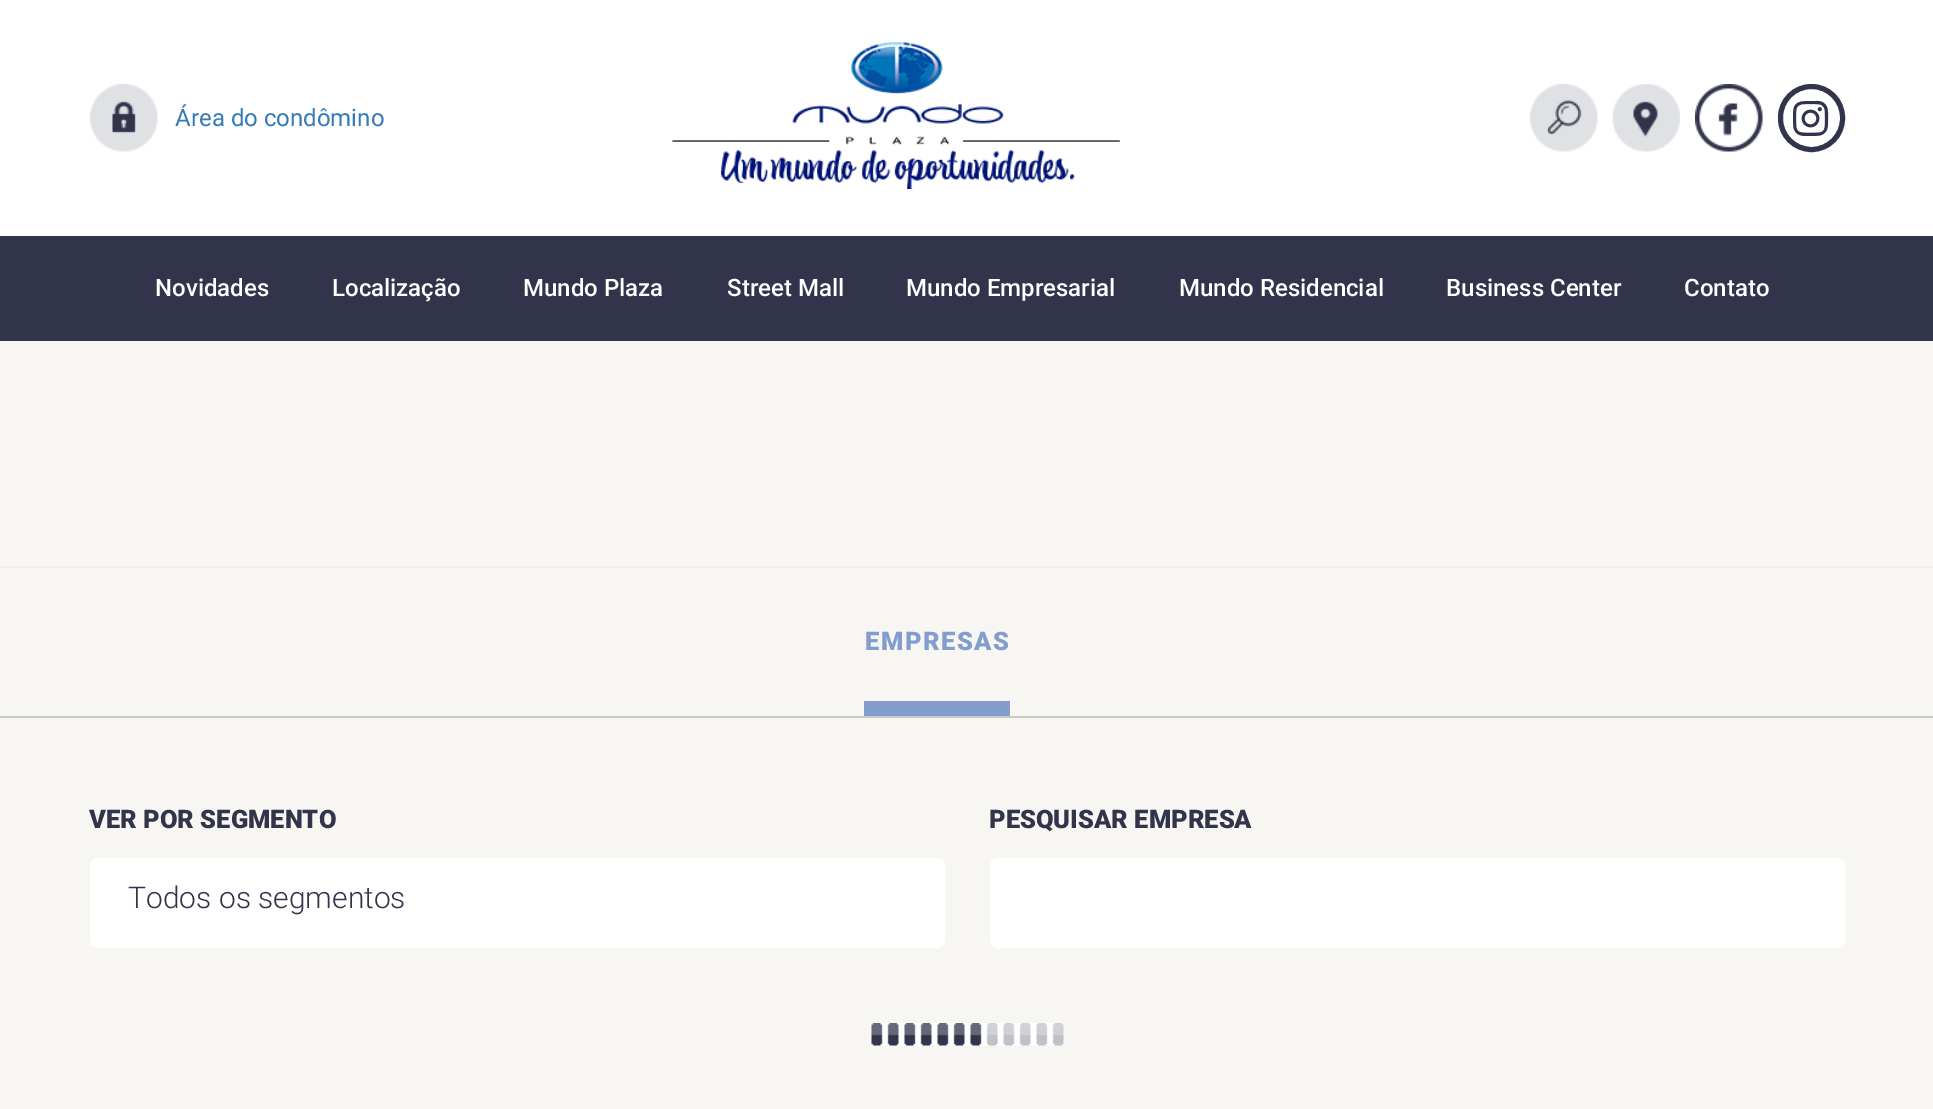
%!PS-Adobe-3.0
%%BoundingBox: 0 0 1933 1109
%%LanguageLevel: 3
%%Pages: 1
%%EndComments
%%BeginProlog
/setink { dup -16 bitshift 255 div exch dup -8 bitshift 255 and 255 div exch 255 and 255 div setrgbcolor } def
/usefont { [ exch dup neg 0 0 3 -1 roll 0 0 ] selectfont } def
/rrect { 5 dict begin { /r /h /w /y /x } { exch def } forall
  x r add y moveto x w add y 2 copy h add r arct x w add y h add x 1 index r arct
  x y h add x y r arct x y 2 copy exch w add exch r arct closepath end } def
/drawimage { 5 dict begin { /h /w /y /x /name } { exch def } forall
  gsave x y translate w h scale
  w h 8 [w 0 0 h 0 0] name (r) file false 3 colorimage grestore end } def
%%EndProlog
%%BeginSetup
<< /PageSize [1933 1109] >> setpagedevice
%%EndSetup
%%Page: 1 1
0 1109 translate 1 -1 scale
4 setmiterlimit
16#F7F6F2 setink
0 0 1933 1109 rectfill
16#FFFFFF setink
0 0 1933 236 rectfill
(img1.raw) 90 84 68 68 drawimage
/Roboto-Regular 24 usefont
16#337AB7 setink
175 126 moveto (Área do condômino) show
(img2.raw) 672 42 448 147 drawimage
(img3.raw) 1530 84 68 68 drawimage
(img4.raw) 1612 84 68 68 drawimage
(img5.raw) 1695 84 68 68 drawimage
16#31344B setink
5 setlinewidth
1780.5 86.5 62 63 31 rrect stroke
(img6.raw) 1793 100 36 36 drawimage
0 236 1933 105 rectfill
/Roboto-Medium 24 usefont
16#FFFFFF setink
[
    [(Novidades) 155 296]
    [(Localização) 332 296]
    [(Mundo Plaza) 523 296]
    [(Street Mall) 727 296]
    [(Mundo Empresarial) 906 296]
    [(Mundo Residencial) 1179 296]
    [(Business Center) 1446 296]
    [(Contato) 1684 296]
] { aload pop moveto show } forall
[
    [0 566 1933 2 16#F0EFEC]
    [0 716 1933 2 16#CACAC5]
    [864 701 146 15 16#849DCF]
] { aload pop setink rectfill } forall
/Roboto-Black 25.5 usefont
865 650 moveto 1.5 0 (EMPRESAS) ashow
16#31344B setink
89 828 moveto (VER POR SEGMENTO) show
16#FFFFFF setink
91 859 853 88 7 rrect gsave fill grestore
2 setlinewidth
stroke
/Roboto-Light 30 usefont
16#31344B setink
128 908 moveto (Todos os segmentos) show
/Roboto-Black 25.5 usefont
989 828 moveto (PESQUISAR EMPRESA) show
16#FFFFFF setink
991 859 853 88 7 rrect gsave fill grestore
stroke
(img7.raw) 871 1023 193 23 drawimage
showpage
%%EOF
